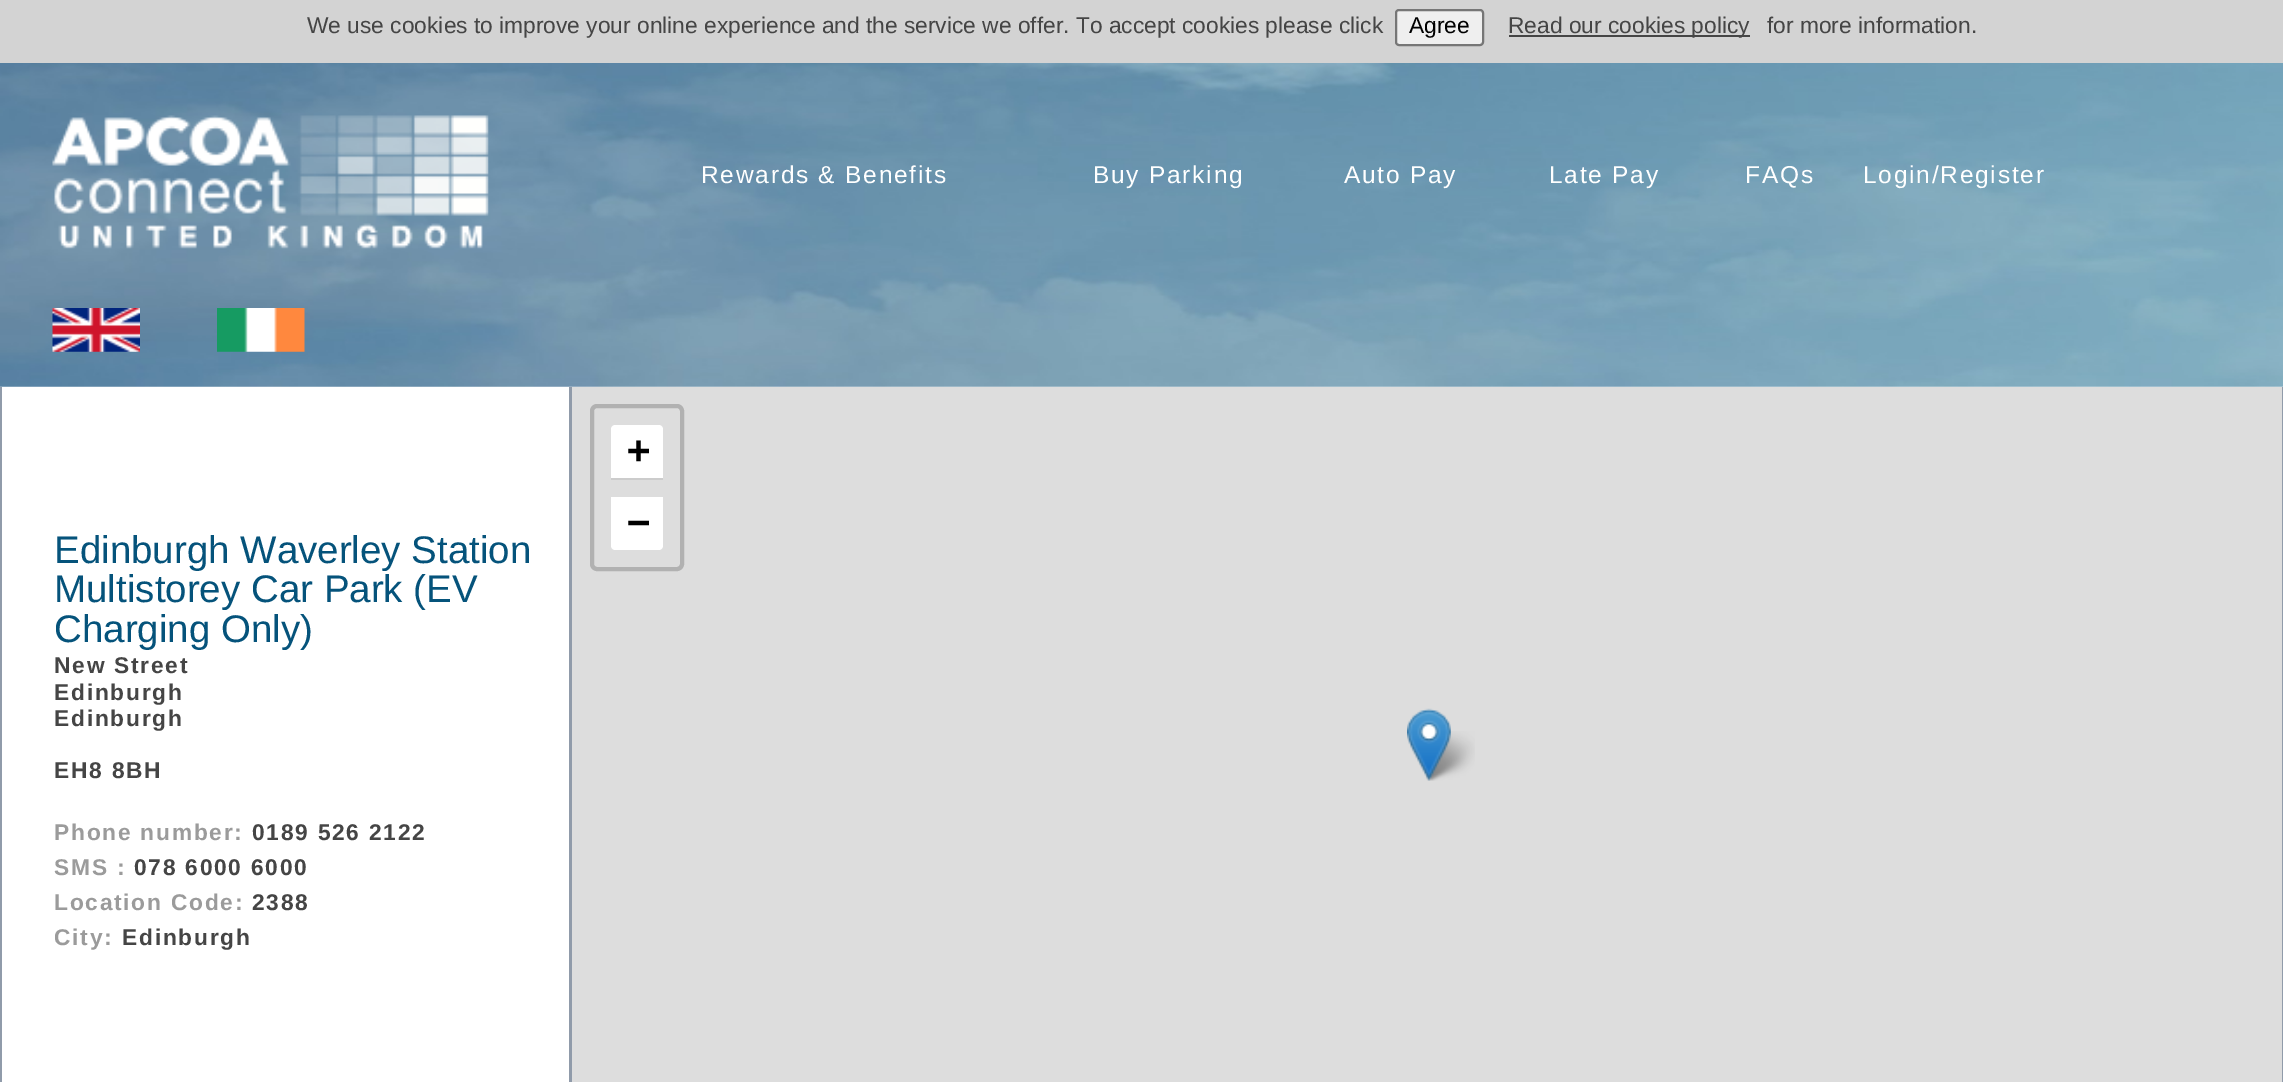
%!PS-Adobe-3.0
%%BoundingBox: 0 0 2283 1082
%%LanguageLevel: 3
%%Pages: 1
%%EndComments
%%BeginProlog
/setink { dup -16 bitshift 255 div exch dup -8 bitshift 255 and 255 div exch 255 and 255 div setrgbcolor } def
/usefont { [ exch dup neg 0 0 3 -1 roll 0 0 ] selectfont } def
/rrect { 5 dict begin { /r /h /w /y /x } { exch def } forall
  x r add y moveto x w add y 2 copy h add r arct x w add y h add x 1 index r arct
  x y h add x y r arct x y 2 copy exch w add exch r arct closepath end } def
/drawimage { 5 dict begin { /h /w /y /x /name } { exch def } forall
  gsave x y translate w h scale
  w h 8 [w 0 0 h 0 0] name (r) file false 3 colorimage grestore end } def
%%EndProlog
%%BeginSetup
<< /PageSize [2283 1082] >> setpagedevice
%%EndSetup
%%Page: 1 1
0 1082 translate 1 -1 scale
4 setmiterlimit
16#FFFFFF setink
0 0 2283 1082 rectfill
(img1.raw) 0 63 2283 324 drawimage
16#D3D3D3 setink
0 0 2283 63 rectfill
/LiberationSans-Regular 22.75 usefont
16#454545 setink
307 33 moveto (We use cookies to improve your online experience and the service we offer. To accept cookies please click) show
16#EFEFEF setink
1396 10 87 35 3 rrect gsave fill grestore
16#767676 setink
2 setlinewidth
stroke
16#000000 setink
1409 33 moveto (Agree) show
16#454545 setink
1509 35 241 2 rectfill
1508 33 moveto (Read our cookies policy) show
1767 33 moveto (for more information.) show
(img2.raw) 52 115 437 134 drawimage
/LiberationSans-Regular 24.5 usefont
16#FFFFFF setink
701 183 moveto 1.75 0 (Rewards & Benefits) ashow
1093 183 moveto 1.75 0 (Buy Parking) ashow
1344 183 moveto 1.75 0 (Auto Pay) ashow
1549 183 moveto 1.75 0 (Late Pay) ashow
1745 183 moveto 1.75 0 (FAQs) ashow
1863 183 moveto 1.75 0 (Login/Register) ashow
(img3.raw) 52 308 88 44 drawimage
(img4.raw) 217 308 88 44 drawimage
16#909BAA setink
2282 387 1 695 rectfill
16#DDDDDD setink
572 387 1710 695 rectfill
16#B1B1B1 setink
4 setlinewidth
592 406 90 163 5 rrect stroke
16#FFFFFF setink
615 425 moveto 659 425 lineto 661 425 663 427 663 429 curveto 663 480 lineto 611 480 lineto 611 429 lineto 611 427 613 425 615 425 curveto closepath fill
16#CCCCCC setink
611 478 52 2 rectfill
/DejaVuSansMono-Bold 38.5 usefont
16#000000 setink
627 463 moveto (+) show
16#FFFFFF setink
611 497 moveto 663 497 lineto 663 546 lineto 663 548 661 550 659 550 curveto 615 550 lineto 613 550 611 548 611 546 curveto closepath fill
16#000000 setink
627 535 moveto (−) show
(img6.raw) 1423 731 52 50 drawimage
(img5.raw) 1407 708 44 73 drawimage
16#909BAA setink
569 387 3 695 rectfill
0 387 2 695 rectfill
/LiberationSans-Regular 38.5 usefont
16#05537B setink
[
    [(Edinburgh Waverley Station) 54 563]
    [(Multistorey Car Park \(EV) 54 602]
    [(Charging Only\)) 54 642]
] { aload pop moveto show } forall
/LiberationSans-Bold 22.75 usefont
16#454545 setink
54 673 moveto 1.75 0 (New Street) ashow
54 700 moveto 1.75 0 (Edinburgh) ashow
54 726 moveto 1.75 0 (Edinburgh) ashow
54 778 moveto 1.75 0 (EH8 8BH) ashow
16#9B9B9B setink
54 840 moveto 1.75 0 (Phone number:) ashow
16#454545 setink
252 840 moveto 1.75 0 (0189 526 2122) ashow
16#9B9B9B setink
54 875 moveto 1.75 0 (SMS :) ashow
16#454545 setink
134 875 moveto 1.75 0 (078 6000 6000) ashow
16#9B9B9B setink
54 910 moveto 1.75 0 (Location Code:) ashow
16#454545 setink
252 910 moveto 1.75 0 (2388) ashow
16#9B9B9B setink
54 945 moveto 1.75 0 (City:) ashow
16#454545 setink
122 945 moveto 1.75 0 (Edinburgh) ashow
showpage
%%EOF
